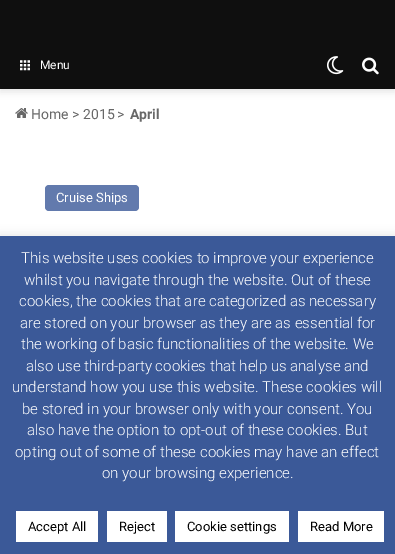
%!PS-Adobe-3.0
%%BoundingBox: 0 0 395 554
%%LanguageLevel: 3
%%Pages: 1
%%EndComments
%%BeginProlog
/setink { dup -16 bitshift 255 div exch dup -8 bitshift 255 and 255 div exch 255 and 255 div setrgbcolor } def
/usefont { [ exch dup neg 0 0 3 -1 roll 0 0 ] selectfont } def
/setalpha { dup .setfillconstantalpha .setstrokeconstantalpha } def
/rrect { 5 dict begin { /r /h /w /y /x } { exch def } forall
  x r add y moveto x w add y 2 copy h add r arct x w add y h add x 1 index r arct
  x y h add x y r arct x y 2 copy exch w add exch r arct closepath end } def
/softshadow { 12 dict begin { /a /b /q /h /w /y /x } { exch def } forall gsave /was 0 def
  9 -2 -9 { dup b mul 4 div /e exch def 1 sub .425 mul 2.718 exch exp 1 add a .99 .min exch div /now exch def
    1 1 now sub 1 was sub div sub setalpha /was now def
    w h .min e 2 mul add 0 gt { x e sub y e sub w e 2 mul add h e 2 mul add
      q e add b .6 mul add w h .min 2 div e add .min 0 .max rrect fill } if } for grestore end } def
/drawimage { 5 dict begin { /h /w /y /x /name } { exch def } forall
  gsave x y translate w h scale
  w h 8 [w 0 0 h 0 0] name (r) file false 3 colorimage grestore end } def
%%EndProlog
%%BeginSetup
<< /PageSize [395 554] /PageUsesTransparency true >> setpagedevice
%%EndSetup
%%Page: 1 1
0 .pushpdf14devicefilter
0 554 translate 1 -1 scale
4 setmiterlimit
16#FFFFFF setink
0 0 395 554 rectfill
16#000000 setink
0 3 395 89 0 3.5 0.1 softshadow
16#0F0F0F setink
0 0 395 89 rectfill
(img1.raw) 20 60 10 11 drawimage
/Roboto-Regular 12 usefont
16#FFFFFF setink
40 69 moveto (Menu) show
(img2.raw) 327 56 17 19 drawimage
(img3.raw) 362 57 17 18 drawimage
(img4.raw) 15 108 13 10 drawimage
/Roboto-Regular 14 usefont
16#686868 setink
[
    [(Home) 31 119]
    [(>) 72 119]
    [(2015) 83 119]
    [(>) 117 119]
] { aload pop moveto show } forall
/Roboto-Bold 14 usefont
130 119 moveto (April) show
16#627AAD setink
45 185 94 26 4 rrect fill
/Roboto-Regular 13 usefont
16#FFFFFF setink
56 202 moveto (Cruise Ships) show
16#ACABAB setink
0 235 395 318 0 5 0.3 softshadow
16#3B5998 setink
0 236 395 318 rectfill
/Roboto-Light 15 usefont
16#FFFFFF setink
[
    [(This website uses cookies to improve your experience) 21 263]
    [(whilst you navigate through the website. Out of these) 24 285]
    [(cookies, the cookies that are categorized as necessary) 19 306]
    [(are stored on your browser as they are as essential for) 20 328]
    [(the working of basic functionalities of the website. We) 21 349]
    [(also use third-party cookies that help us analyse and) 26 371]
    [(understand how you use this website. These cookies will) 12 392]
    [(be stored in your browser only with your consent. You) 22 414]
    [(also have the option to opt-out of these cookies. But) 27 435]
    [(opting out of some of these cookies may have an effect) 15 457]
    [(on your browsing experience.) 102 478]
] { aload pop moveto show } forall
16 511 82 31 rectfill
/Roboto-Regular 13 usefont
16#000000 setink
28 531 moveto (Accept All) show
16#FFFFFF setink
107 511 60 31 rectfill
16#000000 setink
119 531 moveto (Reject) show
16#FFFFFF setink
175 511 114 31 rectfill
16#000000 setink
187 531 moveto (Cookie settings) show
16#FFFFFF setink
298 511 86 31 rectfill
16#000000 setink
310 531 moveto (Read More) show
.poppdf14devicefilter showpage
%%EOF
